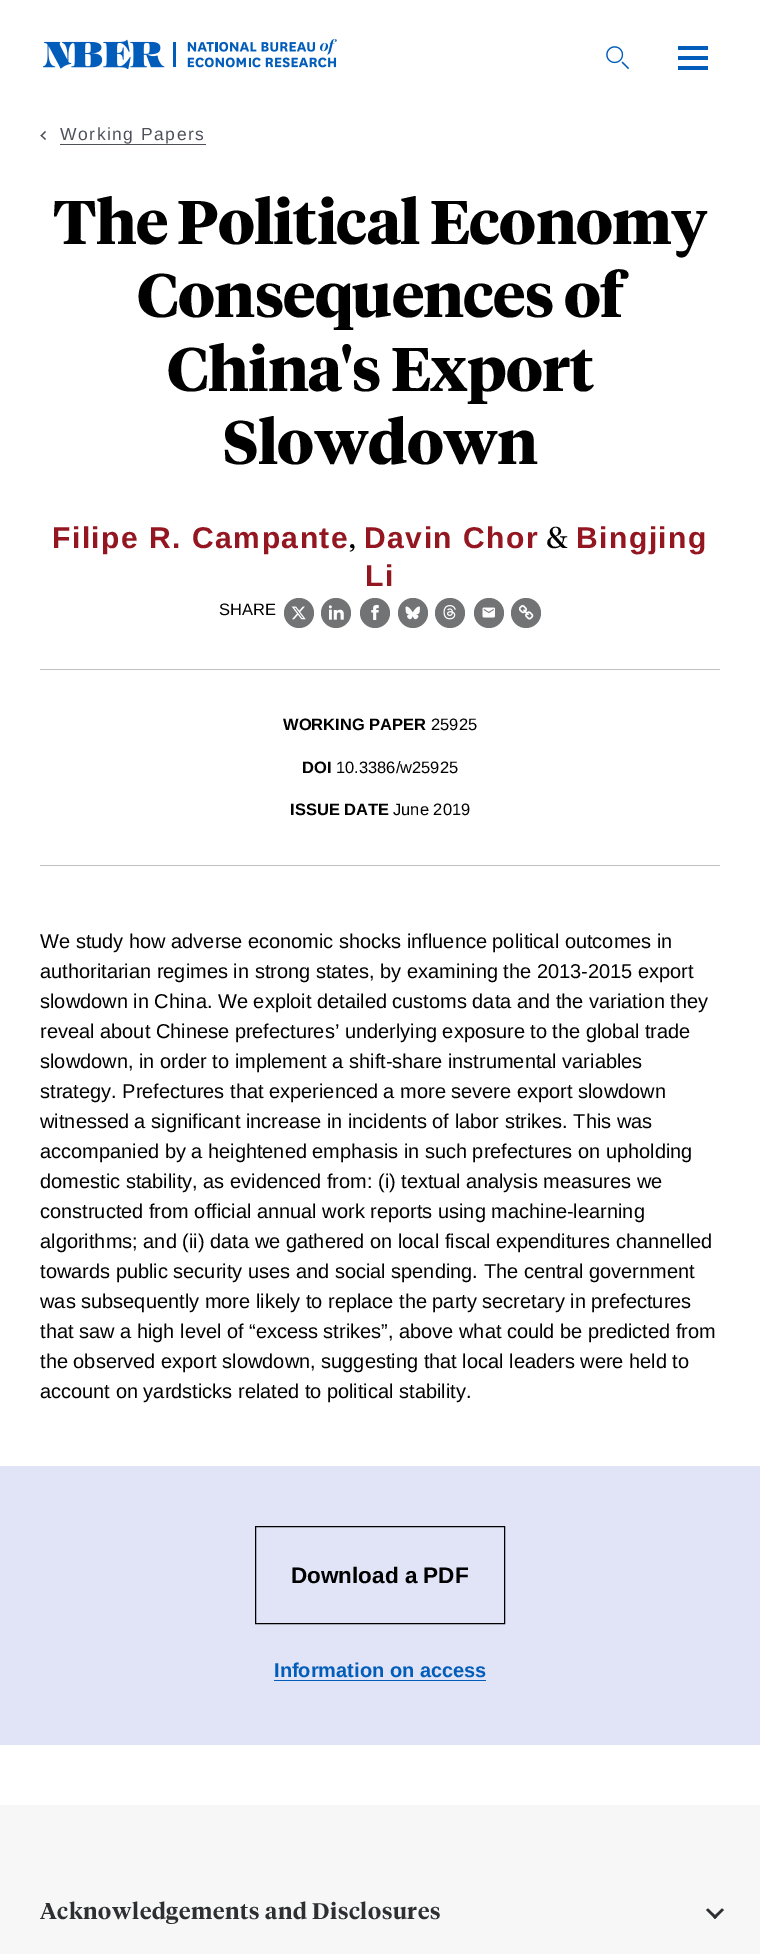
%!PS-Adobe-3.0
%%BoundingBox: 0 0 760 1954
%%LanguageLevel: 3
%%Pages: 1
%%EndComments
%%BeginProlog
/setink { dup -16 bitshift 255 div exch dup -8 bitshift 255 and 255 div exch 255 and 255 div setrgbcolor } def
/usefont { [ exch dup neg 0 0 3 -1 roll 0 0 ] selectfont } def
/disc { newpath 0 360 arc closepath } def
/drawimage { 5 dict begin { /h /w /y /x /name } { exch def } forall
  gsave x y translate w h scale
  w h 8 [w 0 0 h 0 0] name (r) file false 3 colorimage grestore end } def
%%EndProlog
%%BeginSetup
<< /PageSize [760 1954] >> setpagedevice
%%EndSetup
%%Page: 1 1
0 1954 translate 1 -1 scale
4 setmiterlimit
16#FFFFFF setink
0 0 760 1954 rectfill
(img1.raw) 42 39 295 30 drawimage
(img2.raw) 606 45 24 25 drawimage
[
    [678 56 30 4 16#025CB9]
    [678 46 30 4 16#025CB9]
    [678 66 30 4 16#025CB9]
] { aload pop setink rectfill } forall
16#4E505A setink
41.5 135 moveto 46 139 lineto 45 140 lineto 40.5 135.5 lineto closepath fill
40.5 135.5 moveto 45 131 lineto 46 132 lineto 41.5 136.5 lineto closepath fill
/Arimo-Regular 17.5 usefont
60 140 moveto 1.5 0 (Working Papers) ashow
60 144 146 1 rectfill
/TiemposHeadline-Bold 61.25 usefont
16#000000 setink
53 244 moveto -0.6 0 (The Political Economy) ashow
137 317 moveto -0.6 0 (Consequences of) ashow
167 391 moveto -0.6 0 (China's Export) ashow
223 464 moveto -0.6 0 (Slowdown) ashow
/Arimo-Bold 30 usefont
16#931621 setink
52 548 moveto 1.5 0 (Filipe R. Campante) ashow
/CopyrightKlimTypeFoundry-Regular 30 usefont
16#000000 setink
349 548 moveto 1.5 0 (,) ashow
/Arimo-Bold 30 usefont
16#931621 setink
364 548 moveto 1.5 0 (Davin Chor) ashow
/CopyrightKlimTypeFoundry-Regular 30 usefont
16#000000 setink
547 548 moveto 1.5 0 (&) ashow
/Arimo-Bold 30 usefont
16#931621 setink
576 548 moveto 1.5 0 (Bingjing) ashow
365 586 moveto 1.5 0 (Li) ashow
/Arimo-Regular 16.5 usefont
16#000000 setink
219 615 moveto (SHARE) show
16#727374 setink
299 613 15 disc fill
(img3.raw) 291 606 15 14 drawimage
336 613 15 disc fill
(img4.raw) 329 605 15 15 drawimage
375 613 15 disc fill
(img5.raw) 371 605 8 15 drawimage
413 613 15 disc fill
(img6.raw) 405 606 15 14 drawimage
450 613 15 disc fill
(img7.raw) 443 605 13 15 drawimage
489 613 15 disc fill
(img8.raw) 482 607 13 11 drawimage
526 613 15 disc fill
(img9.raw) 519 605 15 15 drawimage
16#BFC0C1 setink
40 669 680 1 rectfill
40 865 680 1 rectfill
/Arimo-Bold 16.5 usefont
16#000000 setink
283 730 moveto (WORKING PAPER) show
/Arimo-Regular 16.5 usefont
431 730 moveto (25925) show
/Arimo-Bold 16.5 usefont
302 773 moveto (DOI) show
/Arimo-Regular 16.5 usefont
336 773 moveto (10.3386/w25925) show
/Arimo-Bold 16.5 usefont
290 815 moveto (ISSUE DATE) show
/Arimo-Regular 16.5 usefont
393 815 moveto (June 2019) show
/Arimo-Regular 20 usefont
[
    [(We study how adverse economic shocks influence political outcomes in) 40 948]
    [(authoritarian regimes in strong states, by examining the 2013-2015 export) 40 978]
    [(slowdown in China. We exploit detailed customs data and the variation they) 40 1008]
    [(reveal about Chinese prefectures’ underlying exposure to the global trade) 40 1038]
    [(slowdown, in order to implement a shift-share instrumental variables) 40 1068]
    [(strategy. Prefectures that experienced a more severe export slowdown) 40 1098]
    [(witnessed a significant increase in incidents of labor strikes. This was) 40 1128]
    [(accompanied by a heightened emphasis in such prefectures on upholding) 40 1158]
    [(domestic stability, as evidenced from: \(i\) textual analysis measures we) 40 1188]
    [(constructed from official annual work reports using machine-learning) 40 1218]
    [(algorithms; and \(ii\) data we gathered on local fiscal expenditures channelled) 40 1248]
    [(towards public security uses and social spending. The central government) 40 1278]
    [(was subsequently more likely to replace the party secretary in prefectures) 40 1308]
    [(that saw a high level of “excess strikes”, above what could be predicted from) 40 1338]
    [(the observed export slowdown, suggesting that local leaders were held to) 40 1368]
    [(account on yardsticks related to political stability.) 40 1398]
] { aload pop moveto show } forall
16#E0E4F6 setink
0 1466 760 279 rectfill
16#000000 setink
255.5 1526.5 249 97 rectstroke
/Arimo-Bold 22.5 usefont
291 1583 moveto (Download a PDF) show
/Arimo-Bold 20 usefont
16#025CB9 setink
274 1677 moveto (Information on access) show
274 1680 212 1 rectfill
16#F7F7F7 setink
0 1805 760 149 rectfill
/TiemposHeadline-SemiBold 22.5 usefont
16#2D2F33 setink
40 1919 moveto 0.6 0 (Acknowledgements and Disclosures) ashow
722 1908.5 moveto 724 1910 lineto 715 1919 lineto 713 1917 lineto closepath fill
708 1908.5 moveto 717 1917 lineto 715 1919 lineto 706 1910 lineto closepath fill
showpage
%%EOF
